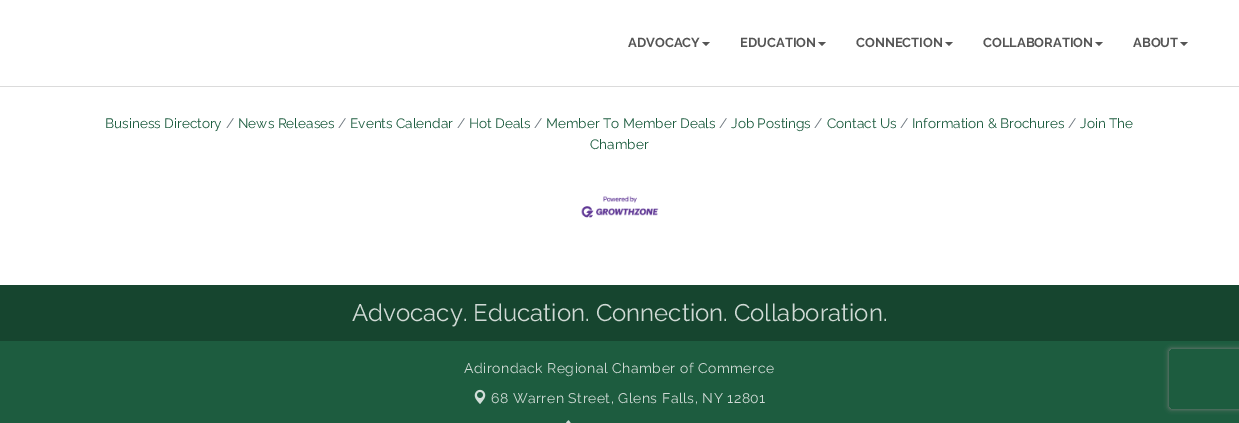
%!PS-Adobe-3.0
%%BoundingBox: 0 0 1239 423
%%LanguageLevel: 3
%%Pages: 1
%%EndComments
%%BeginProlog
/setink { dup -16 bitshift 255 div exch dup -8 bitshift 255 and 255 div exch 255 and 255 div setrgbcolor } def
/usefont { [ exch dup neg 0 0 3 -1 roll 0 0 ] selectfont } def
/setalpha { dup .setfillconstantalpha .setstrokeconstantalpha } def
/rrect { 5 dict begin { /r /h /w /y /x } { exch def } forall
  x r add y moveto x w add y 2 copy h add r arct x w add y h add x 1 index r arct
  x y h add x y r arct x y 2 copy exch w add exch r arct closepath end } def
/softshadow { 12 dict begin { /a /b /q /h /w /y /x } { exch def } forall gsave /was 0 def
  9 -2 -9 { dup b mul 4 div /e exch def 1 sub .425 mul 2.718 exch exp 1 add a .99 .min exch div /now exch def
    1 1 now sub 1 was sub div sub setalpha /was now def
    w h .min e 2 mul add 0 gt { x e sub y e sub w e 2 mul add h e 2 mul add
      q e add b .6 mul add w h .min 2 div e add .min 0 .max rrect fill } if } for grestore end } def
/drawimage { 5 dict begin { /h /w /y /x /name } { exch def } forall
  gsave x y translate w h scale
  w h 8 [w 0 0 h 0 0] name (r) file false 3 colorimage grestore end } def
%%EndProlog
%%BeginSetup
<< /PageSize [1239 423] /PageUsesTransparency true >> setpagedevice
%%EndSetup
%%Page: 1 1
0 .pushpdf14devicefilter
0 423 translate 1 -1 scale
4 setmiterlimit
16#FFFFFF setink
0 0 1239 423 rectfill
16#DBDBDB setink
0 86 1239 1 rectfill
/Raleway-Bold 13 usefont
16#555555 setink
628 47 moveto (ADVOCACY) show
702 42 moveto 710 42 lineto 706 46 lineto closepath fill
740 47 moveto (EDUCATION) show
818 42 moveto 826 42 lineto 822 46 lineto closepath fill
856 47 moveto (CONNECTION) show
945 42 moveto 953 42 lineto 949 46 lineto closepath fill
983 47 moveto (COLLABORATION) show
1095 42 moveto 1103 42 lineto 1099 46 lineto closepath fill
1133 47 moveto (ABOUT) show
1180 42 moveto 1188 42 lineto 1184 46 lineto closepath fill
/Raleway-Regular 13.6 usefont
16#1D5C3F setink
105 128 moveto (Business Directory) show
16#6C757D setink
226 128 moveto (/) show
16#1D5C3F setink
238 128 moveto (News Releases) show
16#6C757D setink
338 128 moveto (/) show
16#1D5C3F setink
350 128 moveto (Events Calendar) show
16#6C757D setink
457 128 moveto (/) show
16#1D5C3F setink
469 128 moveto (Hot Deals) show
16#6C757D setink
534 128 moveto (/) show
16#1D5C3F setink
546 128 moveto (Member To Member Deals) show
16#6C757D setink
900 128 moveto (/) show
16#1D5C3F setink
912 128 moveto (Information & Brochures) show
16#6C757D setink
1068 128 moveto (/) show
16#1D5C3F setink
1080 128 moveto (Join The) show
590 149 moveto (Chamber) show
16#6C757D setink
719 128 moveto (/) show
16#1D5C3F setink
731 128 moveto (Job Postings) show
16#6C757D setink
814 128 moveto (/) show
16#1D5C3F setink
827 128 moveto (Contact Us) show
(img1.raw) 581 196 78 22 drawimage
16#16452F setink
0 285 1239 56 rectfill
/Raleway-Regular 24 usefont
16#D0DAD5 setink
352 321 moveto (Advocacy. Education. Connection. Collaboration.) show
16#1D5C3F setink
0 341 1239 82 rectfill
/Raleway-Regular 14 usefont
16#D0DAD5 setink
464 373 moveto 0.5 0 (Adirondack Regional Chamber of Commerce) ashow
(img2.raw) 474 389 12 15 drawimage
491 403 moveto 0.5 0 (68 Warren Street, Glens Falls, NY 12801) ashow
(img3.raw) 566 420 5 3 drawimage
gsave
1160 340 moveto 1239 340 lineto 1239 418 lineto 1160 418 lineto closepath 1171 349 moveto 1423 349 lineto 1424 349 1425 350 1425 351 curveto 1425 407 lineto 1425 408 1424 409 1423 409 curveto 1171 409 lineto 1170 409 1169 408 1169 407 curveto 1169 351 lineto 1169 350 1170 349 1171 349 curveto closepath eoclip newpath
16#808080 setink
1169 349 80 60 2 2.5 1 softshadow
grestore
.poppdf14devicefilter showpage
%%EOF
